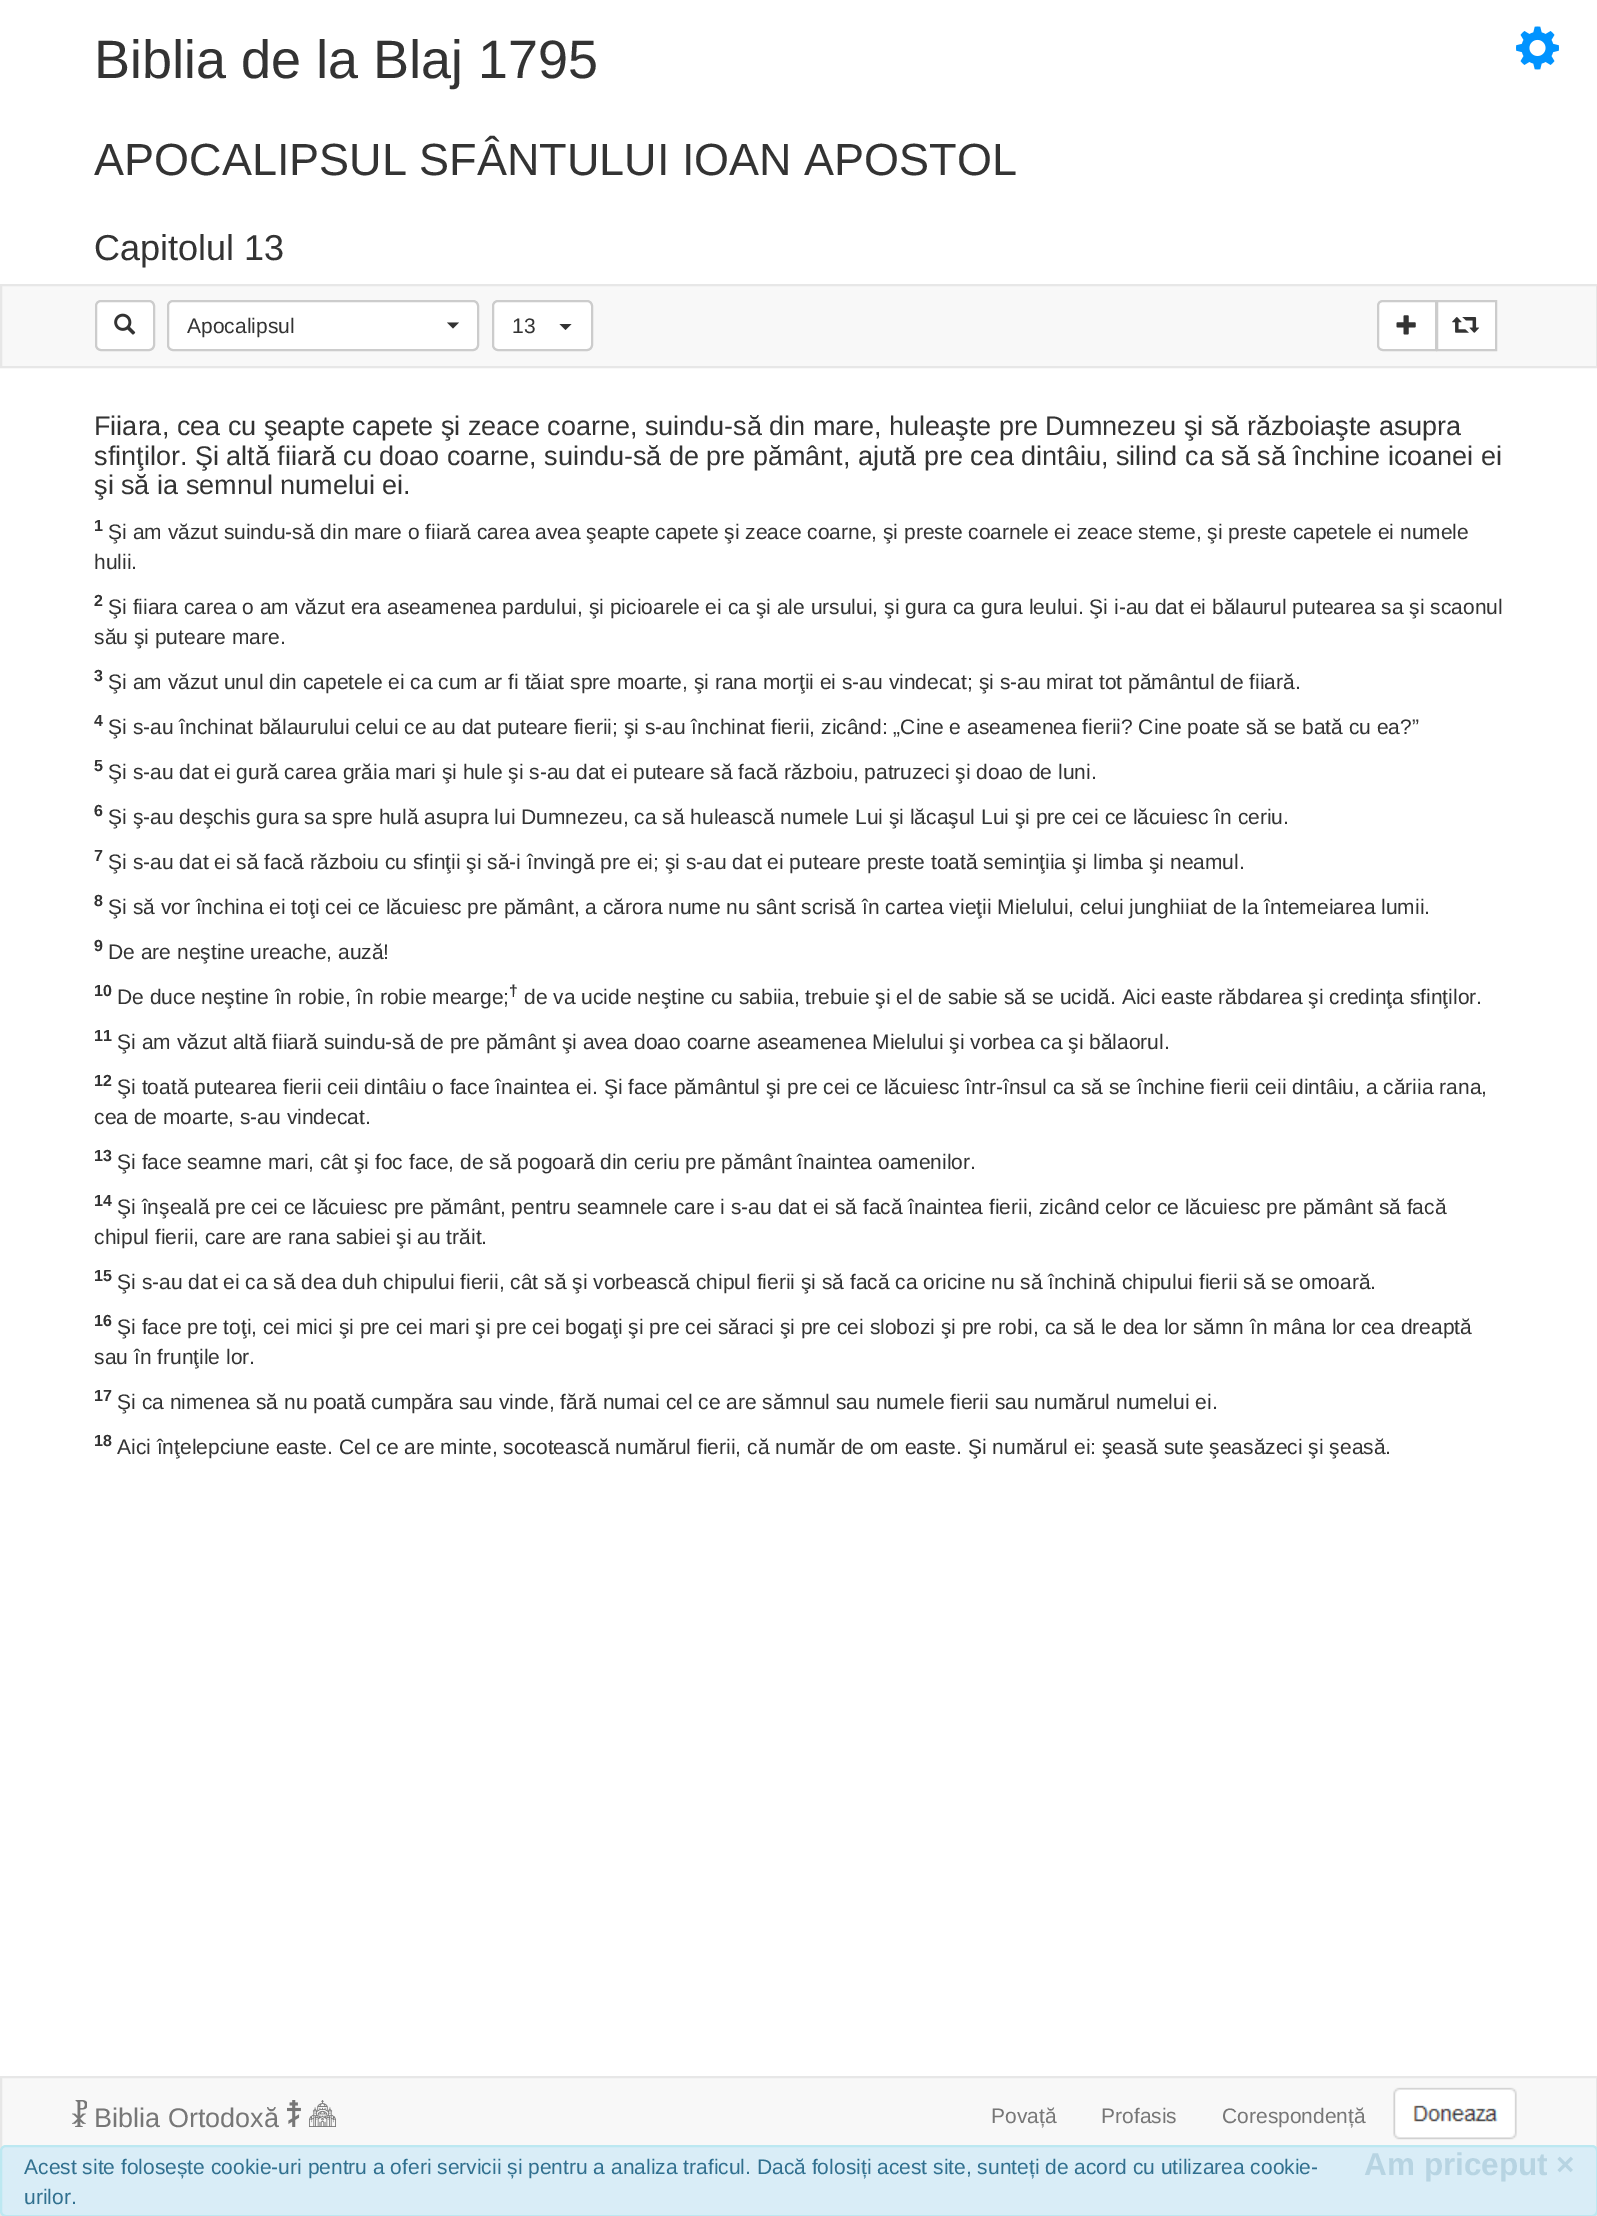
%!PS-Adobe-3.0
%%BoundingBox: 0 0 1597 2216
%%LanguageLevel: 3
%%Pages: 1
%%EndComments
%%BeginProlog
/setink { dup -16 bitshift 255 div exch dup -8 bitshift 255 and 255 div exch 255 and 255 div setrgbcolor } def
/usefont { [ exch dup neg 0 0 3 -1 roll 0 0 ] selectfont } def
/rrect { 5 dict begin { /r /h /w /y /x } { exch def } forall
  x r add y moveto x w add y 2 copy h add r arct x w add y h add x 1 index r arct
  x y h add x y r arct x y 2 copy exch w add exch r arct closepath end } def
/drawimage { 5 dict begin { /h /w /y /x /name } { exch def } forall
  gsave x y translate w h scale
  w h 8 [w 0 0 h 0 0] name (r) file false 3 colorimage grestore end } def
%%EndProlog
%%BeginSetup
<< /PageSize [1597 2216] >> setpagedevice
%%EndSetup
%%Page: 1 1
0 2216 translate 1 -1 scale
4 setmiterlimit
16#FFFFFF setink
0 0 1597 2216 rectfill
/LiberationSans-Regular 54 usefont
16#333333 setink
94 78 moveto (Biblia de la Blaj 1795) show
/LiberationSans-Regular 45 usefont
94 175 moveto (APOCALIPSUL SFÂNTULUI IOAN APOSTOL) show
/LiberationSans-Regular 36 usefont
94 260 moveto (Capitolul 13) show
(img1.raw) 1516 26 43 44 drawimage
16#F8F8F8 setink
1 285 moveto 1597 285 lineto 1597 367 lineto 1 367 lineto closepath gsave fill grestore
16#E7E7E7 setink
2 setlinewidth
stroke
16#FFFFFF setink
96 301 58 49 5 rrect gsave fill grestore
16#CCCCCC setink
stroke
(img2.raw) 114 313 22 22 drawimage
16#FFFFFF setink
168 301 310 49 5 rrect gsave fill grestore
16#CCCCCC setink
stroke
/LiberationSans-Regular 21 usefont
16#333333 setink
187 333 moveto (Apocalipsul) show
447 322.5 moveto 459 322.5 lineto 453 328.5 lineto closepath fill
16#FFFFFF setink
493 301 99 49 5 rrect gsave fill grestore
16#CCCCCC setink
stroke
16#333333 setink
512 333 moveto (13) show
559.5 324 moveto 571.5 324 lineto 565.5 330 lineto closepath fill
16#FFFFFF setink
1383 301 moveto 1436 301 lineto 1436 350 lineto 1383 350 lineto 1380 350 1378 348 1378 345 curveto 1378 306 lineto 1378 303 1380 301 1383 301 curveto closepath gsave fill grestore
16#CCCCCC setink
stroke
(img3.raw) 1396 315 20 20 drawimage
16#FFFFFF setink
1437 301 moveto 1496 301 lineto 1496 350 lineto 1437 350 lineto closepath gsave fill grestore
16#CCCCCC setink
stroke
(img4.raw) 1452 317 28 16 drawimage
/LiberationSans-Regular 27 usefont
16#333333 setink
[
    [(Fiiara, cea cu şeapte capete şi zeace coarne, suindu-să din mare, huleaşte pre Dumnezeu şi să războiaşte asupra) 94 435]
    [(sfinţilor. Şi altă fiiară cu doao coarne, suindu-să de pre pământ, ajută pre cea dintâiu, silind ca să să închine icoanei ei) 94 465]
    [(şi să ia semnul numelui ei.) 94 494]
] { aload pop moveto show } forall
/LiberationSans-Bold 16 usefont
94 531 moveto (1) show
/LiberationSans-Regular 21 usefont
108 539 moveto (Şi am văzut suindu-să din mare o fiiară carea avea şeapte capete şi zeace coarne, şi preste coarnele ei zeace steme, şi preste capetele ei numele) show
94 569 moveto (hulii.) show
/LiberationSans-Bold 16 usefont
94 606 moveto (2) show
/LiberationSans-Regular 21 usefont
108 614 moveto (Şi fiiara carea o am văzut era aseamenea pardului, şi picioarele ei ca şi ale ursului, şi gura ca gura leului. Şi i-au dat ei bălaurul putearea sa şi scaonul) show
94 644 moveto (său şi puteare mare.) show
/LiberationSans-Bold 16 usefont
94 681 moveto (3) show
/LiberationSans-Regular 21 usefont
108 689 moveto (Şi am văzut unul din capetele ei ca cum ar fi tăiat spre moarte, şi rana morţii ei s-au vindecat; şi s-au mirat tot pământul de fiiară.) show
/LiberationSans-Bold 16 usefont
94 726 moveto (4) show
/LiberationSans-Regular 21 usefont
108 734 moveto (Şi s-au închinat bălaurului celui ce au dat puteare fierii; şi s-au închinat fierii, zicând: „Cine e aseamenea fierii? Cine poate să se bată cu ea?”) show
/LiberationSans-Bold 16 usefont
94 771 moveto (5) show
/LiberationSans-Regular 21 usefont
108 779 moveto (Şi s-au dat ei gură carea grăia mari şi hule şi s-au dat ei puteare să facă războiu, patruzeci şi doao de luni.) show
/LiberationSans-Bold 16 usefont
94 816 moveto (6) show
/LiberationSans-Regular 21 usefont
108 824 moveto (Şi ş-au deşchis gura sa spre hulă asupra lui Dumnezeu, ca să hulească numele Lui şi lăcaşul Lui şi pre cei ce lăcuiesc în ceriu.) show
/LiberationSans-Bold 16 usefont
94 861 moveto (7) show
/LiberationSans-Regular 21 usefont
108 869 moveto (Şi s-au dat ei să facă războiu cu sfinţii şi să-i învingă pre ei; şi s-au dat ei puteare preste toată seminţiia şi limba şi neamul.) show
/LiberationSans-Bold 16 usefont
94 906 moveto (8) show
/LiberationSans-Regular 21 usefont
108 914 moveto (Şi să vor închina ei toţi cei ce lăcuiesc pre pământ, a cărora nume nu sânt scrisă în cartea vieţii Mielului, celui junghiiat de la întemeiarea lumii.) show
/LiberationSans-Bold 16 usefont
94 951 moveto (9) show
/LiberationSans-Regular 21 usefont
108 959 moveto (De are neştine ureache, auză!) show
/LiberationSans-Bold 16 usefont
94 996 moveto (10) show
/LiberationSans-Regular 21 usefont
117 1004 moveto (De duce neştine în robie, în robie mearge;) show
/LiberationSans-Bold 16 usefont
509 996 moveto (†) show
/LiberationSans-Regular 21 usefont
524 1004 moveto (de va ucide neştine cu sabiia, trebuie şi el de sabie să se ucidă. Aici easte răbdarea şi credinţa sfinţilor.) show
/LiberationSans-Bold 16 usefont
94 1041 moveto (11) show
/LiberationSans-Regular 21 usefont
117 1049 moveto (Şi am văzut altă fiiară suindu-să de pre pământ şi avea doao coarne aseamenea Mielului şi vorbea ca şi bălaorul.) show
/LiberationSans-Bold 16 usefont
94 1086 moveto (12) show
/LiberationSans-Regular 21 usefont
117 1094 moveto (Şi toată putearea fierii ceii dintâiu o face înaintea ei. Şi face pământul şi pre cei ce lăcuiesc într-însul ca să se închine fierii ceii dintâiu, a căriia rana,) show
94 1124 moveto (cea de moarte, s-au vindecat.) show
/LiberationSans-Bold 16 usefont
94 1161 moveto (13) show
/LiberationSans-Regular 21 usefont
117 1169 moveto (Şi face seamne mari, cât şi foc face, de să pogoară din ceriu pre pământ înaintea oamenilor.) show
/LiberationSans-Bold 16 usefont
94 1206 moveto (14) show
/LiberationSans-Regular 21 usefont
117 1214 moveto (Şi înşeală pre cei ce lăcuiesc pre pământ, pentru seamnele care i s-au dat ei să facă înaintea fierii, zicând celor ce lăcuiesc pre pământ să facă) show
94 1244 moveto (chipul fierii, care are rana sabiei şi au trăit.) show
/LiberationSans-Bold 16 usefont
94 1281 moveto (15) show
/LiberationSans-Regular 21 usefont
117 1289 moveto (Şi s-au dat ei ca să dea duh chipului fierii, cât să şi vorbească chipul fierii şi să facă ca oricine nu să închină chipului fierii să se omoară.) show
/LiberationSans-Bold 16 usefont
94 1326 moveto (16) show
/LiberationSans-Regular 21 usefont
117 1334 moveto (Şi face pre toţi, cei mici şi pre cei mari şi pre cei bogaţi şi pre cei săraci şi pre cei slobozi şi pre robi, ca să le dea lor sămn în mâna lor cea dreaptă) show
94 1364 moveto (sau în frunţile lor.) show
/LiberationSans-Bold 16 usefont
94 1401 moveto (17) show
/LiberationSans-Regular 21 usefont
117 1409 moveto (Şi ca nimenea să nu poată cumpăra sau vinde, fără numai cel ce are sămnul sau numele fierii sau numărul numelui ei.) show
/LiberationSans-Bold 16 usefont
94 1446 moveto (18) show
/LiberationSans-Regular 21 usefont
117 1454 moveto (Aici înţelepciune easte. Cel ce are minte, socotească numărul fierii, că număr de om easte. Şi numărul ei: şeasă sute şeasăzeci şi şeasă.) show
16#F8F8F8 setink
2 2078 1594 69 rectfill
16#E7E7E7 setink
1 2077 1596 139 rectstroke
(img5.raw) 72 2100 15 27 drawimage
/LiberationSans-Regular 27 usefont
16#777777 setink
94 2127 moveto (Biblia Ortodoxă) show
(img6.raw) 287 2100 14 27 drawimage
(img7.raw) 309 2100 27 27 drawimage
/LiberationSans-Regular 21 usefont
[
    [(Povață) 991 2123]
    [(Profasis) 1101 2123]
    [(Corespondență) 1222 2123]
] { aload pop moveto show } forall
(img8.raw) 1393 2087 124 53 drawimage
16#D9EDF7 setink
1 2146 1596 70 5 rrect gsave fill grestore
16#BCE8F1 setink
stroke
16#31708F setink
24 2174 moveto (Acest site folosește cookie-uri pentru a oferi servicii și pentru a analiza traficul. Dacă folosiți acest site, sunteți de acord cu utilizarea cookie-) show
/LiberationSans-Bold 31.5 usefont
16#B7D4E2 setink
1364 2175 moveto (Am priceput ×) show
/LiberationSans-Regular 21 usefont
16#31708F setink
24 2204 moveto (urilor.) show
showpage
%%EOF
